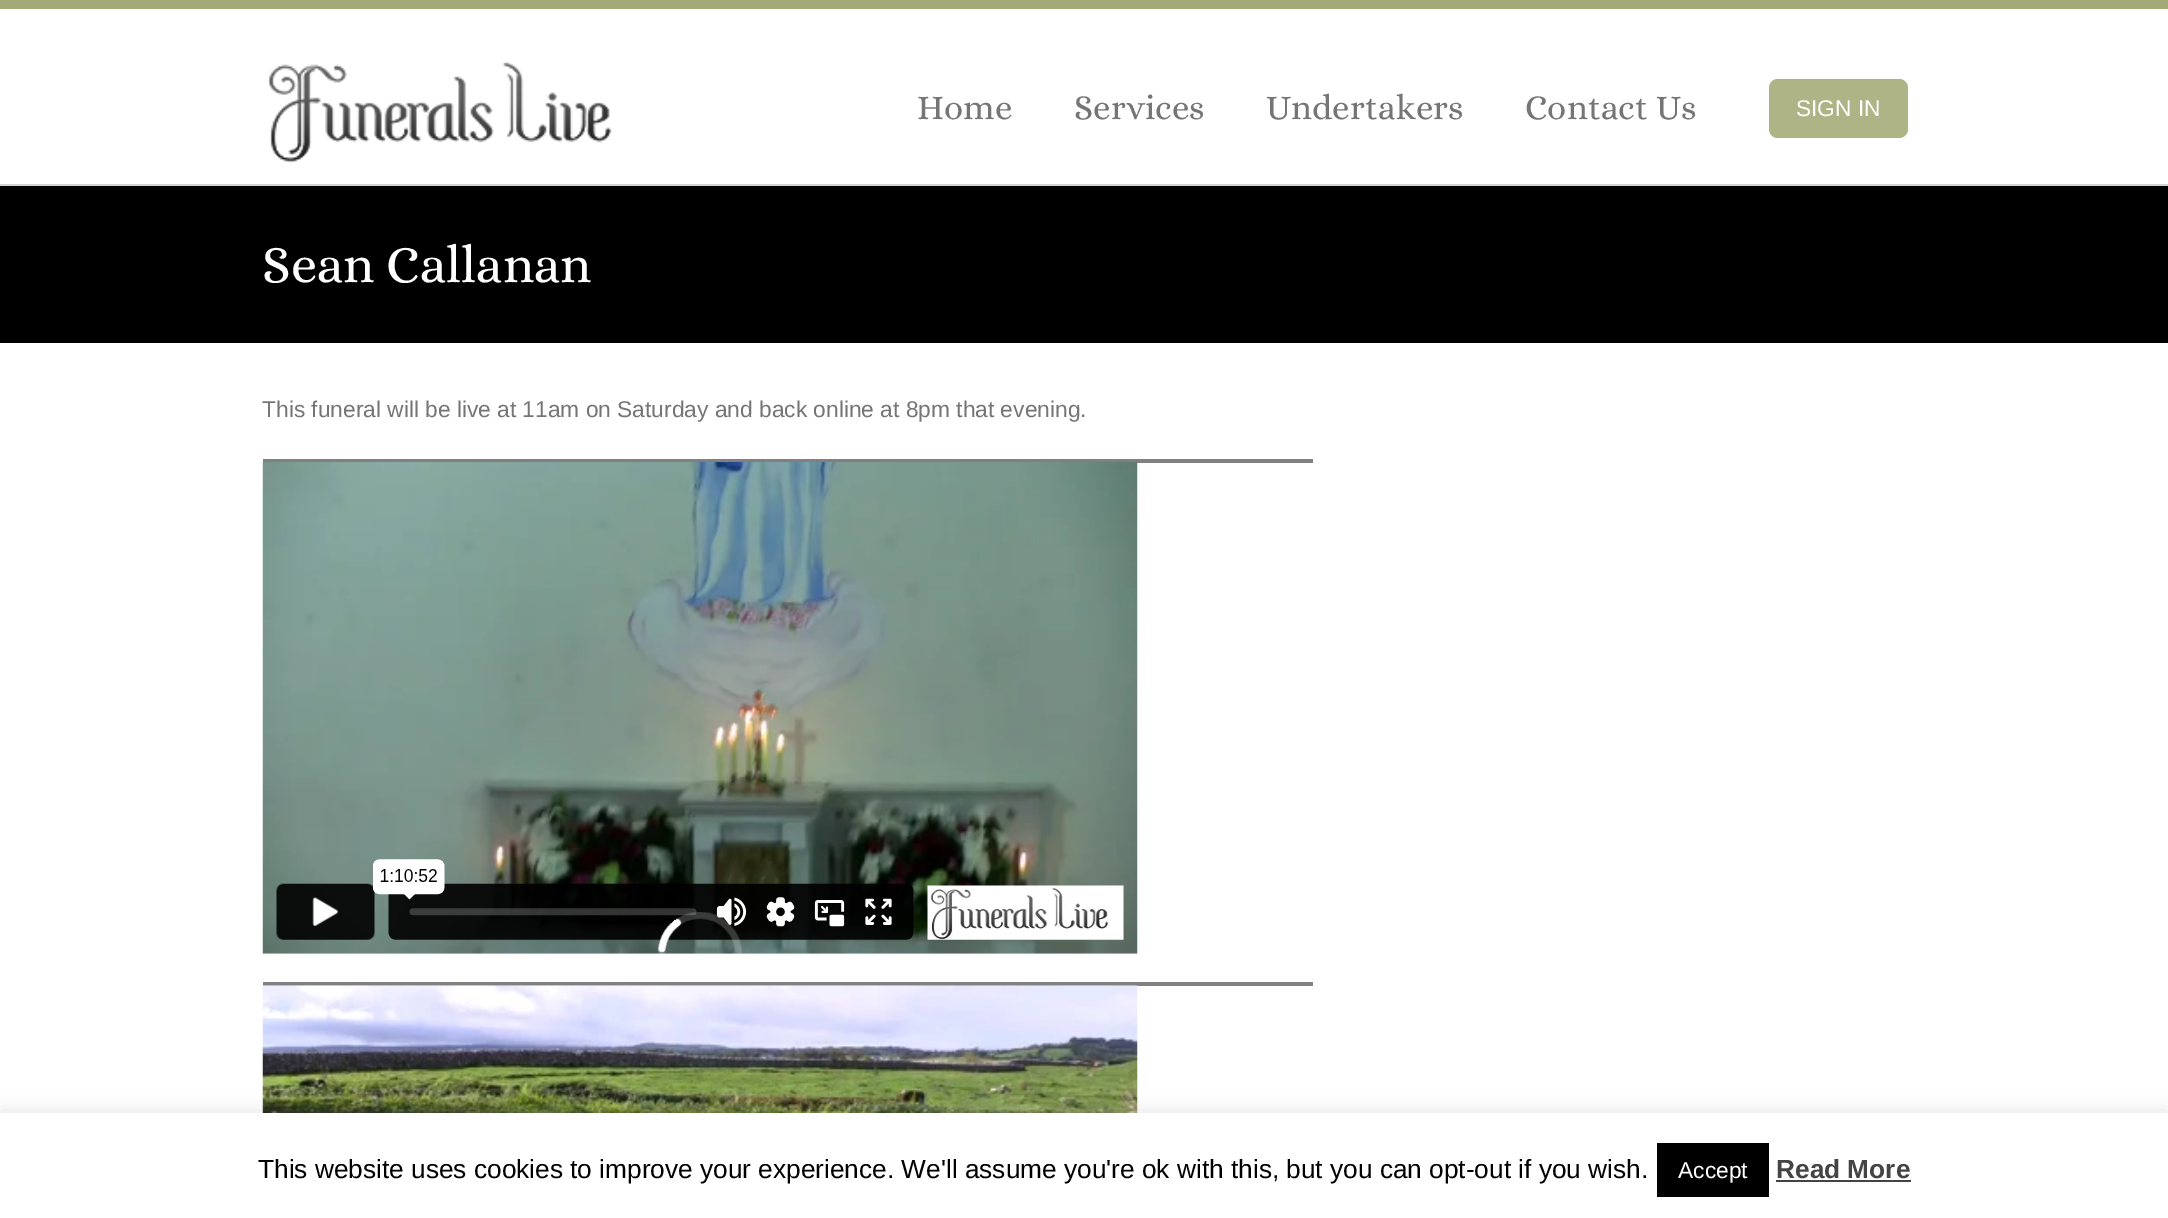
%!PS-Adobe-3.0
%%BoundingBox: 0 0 2168 1218
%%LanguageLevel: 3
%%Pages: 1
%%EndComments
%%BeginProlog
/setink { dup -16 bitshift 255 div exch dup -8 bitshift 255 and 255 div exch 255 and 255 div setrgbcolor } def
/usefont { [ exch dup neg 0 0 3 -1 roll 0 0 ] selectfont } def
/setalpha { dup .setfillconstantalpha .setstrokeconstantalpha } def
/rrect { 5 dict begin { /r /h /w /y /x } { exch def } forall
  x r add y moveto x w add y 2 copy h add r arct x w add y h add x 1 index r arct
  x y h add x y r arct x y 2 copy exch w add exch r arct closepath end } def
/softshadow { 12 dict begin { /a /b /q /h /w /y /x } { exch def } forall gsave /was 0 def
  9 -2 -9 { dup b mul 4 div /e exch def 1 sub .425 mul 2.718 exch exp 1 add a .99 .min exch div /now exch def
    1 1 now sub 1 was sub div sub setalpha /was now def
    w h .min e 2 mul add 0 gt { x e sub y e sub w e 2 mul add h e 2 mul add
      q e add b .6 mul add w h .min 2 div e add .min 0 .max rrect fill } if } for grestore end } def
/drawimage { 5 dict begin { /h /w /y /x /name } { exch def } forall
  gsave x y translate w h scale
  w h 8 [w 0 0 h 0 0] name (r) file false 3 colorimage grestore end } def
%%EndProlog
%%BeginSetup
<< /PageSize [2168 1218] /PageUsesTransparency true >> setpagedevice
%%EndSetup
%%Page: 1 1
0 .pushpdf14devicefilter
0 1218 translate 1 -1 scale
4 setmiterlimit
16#FFFFFF setink
0 0 2168 1218 rectfill
16#A4AA77 setink
0 0 2168 9 rectfill
16#D5D5D5 setink
0 184 2168 2 rectfill
(img1.raw) 268 62 344 101 drawimage
/Alice-Regular 35 usefont
16#757575 setink
[
    [(Home) 917 119]
    [(Services) 1074 119]
    [(Undertakers) 1266 119]
    [(Contact Us) 1525 119]
] { aload pop moveto show } forall
16#AEB486 setink
1769 79 139 59 9 rrect fill
/LiberationSans-Regular 22.75 usefont
16#FFFFFF setink
1796 116 moveto (SIGN IN) show
16#000000 setink
0 186 2168 157 rectfill
/Alice-Regular 52.5 usefont
16#FFFFFF setink
262 282 moveto (Sean Callanan) show
/LiberationSans-Regular 22.75 usefont
16#757575 setink
262 417 moveto (This funeral will be live at 11am on Saturday and back online at 8pm that evening.) show
16#808080 setink
263 459 1050 4 rectfill
(img2.raw) 262 462 876 492 drawimage
263 982 1050 4 rectfill
(img3.raw) 262 985 876 128 drawimage
16#ACABAB setink
0 1111 2168 105 0 9 0.3 softshadow
16#FFFFFF setink
0 1113 2168 105 rectfill
/LiberationSans-Regular 26.25 usefont
16#000000 setink
258 1178 moveto (This website uses cookies to improve your experience. We'll assume you're ok with this, but you can opt-out if you wish.) show
1657 1143 112 54 rectfill
/LiberationSans-Regular 22.75 usefont
16#FFFFFF setink
1678 1178 moveto (Accept) show
/LiberationSans-Bold 26.25 usefont
16#444444 setink
1776 1178 moveto (Read More) show
1776 1180 135 2 rectfill
.poppdf14devicefilter showpage
%%EOF
